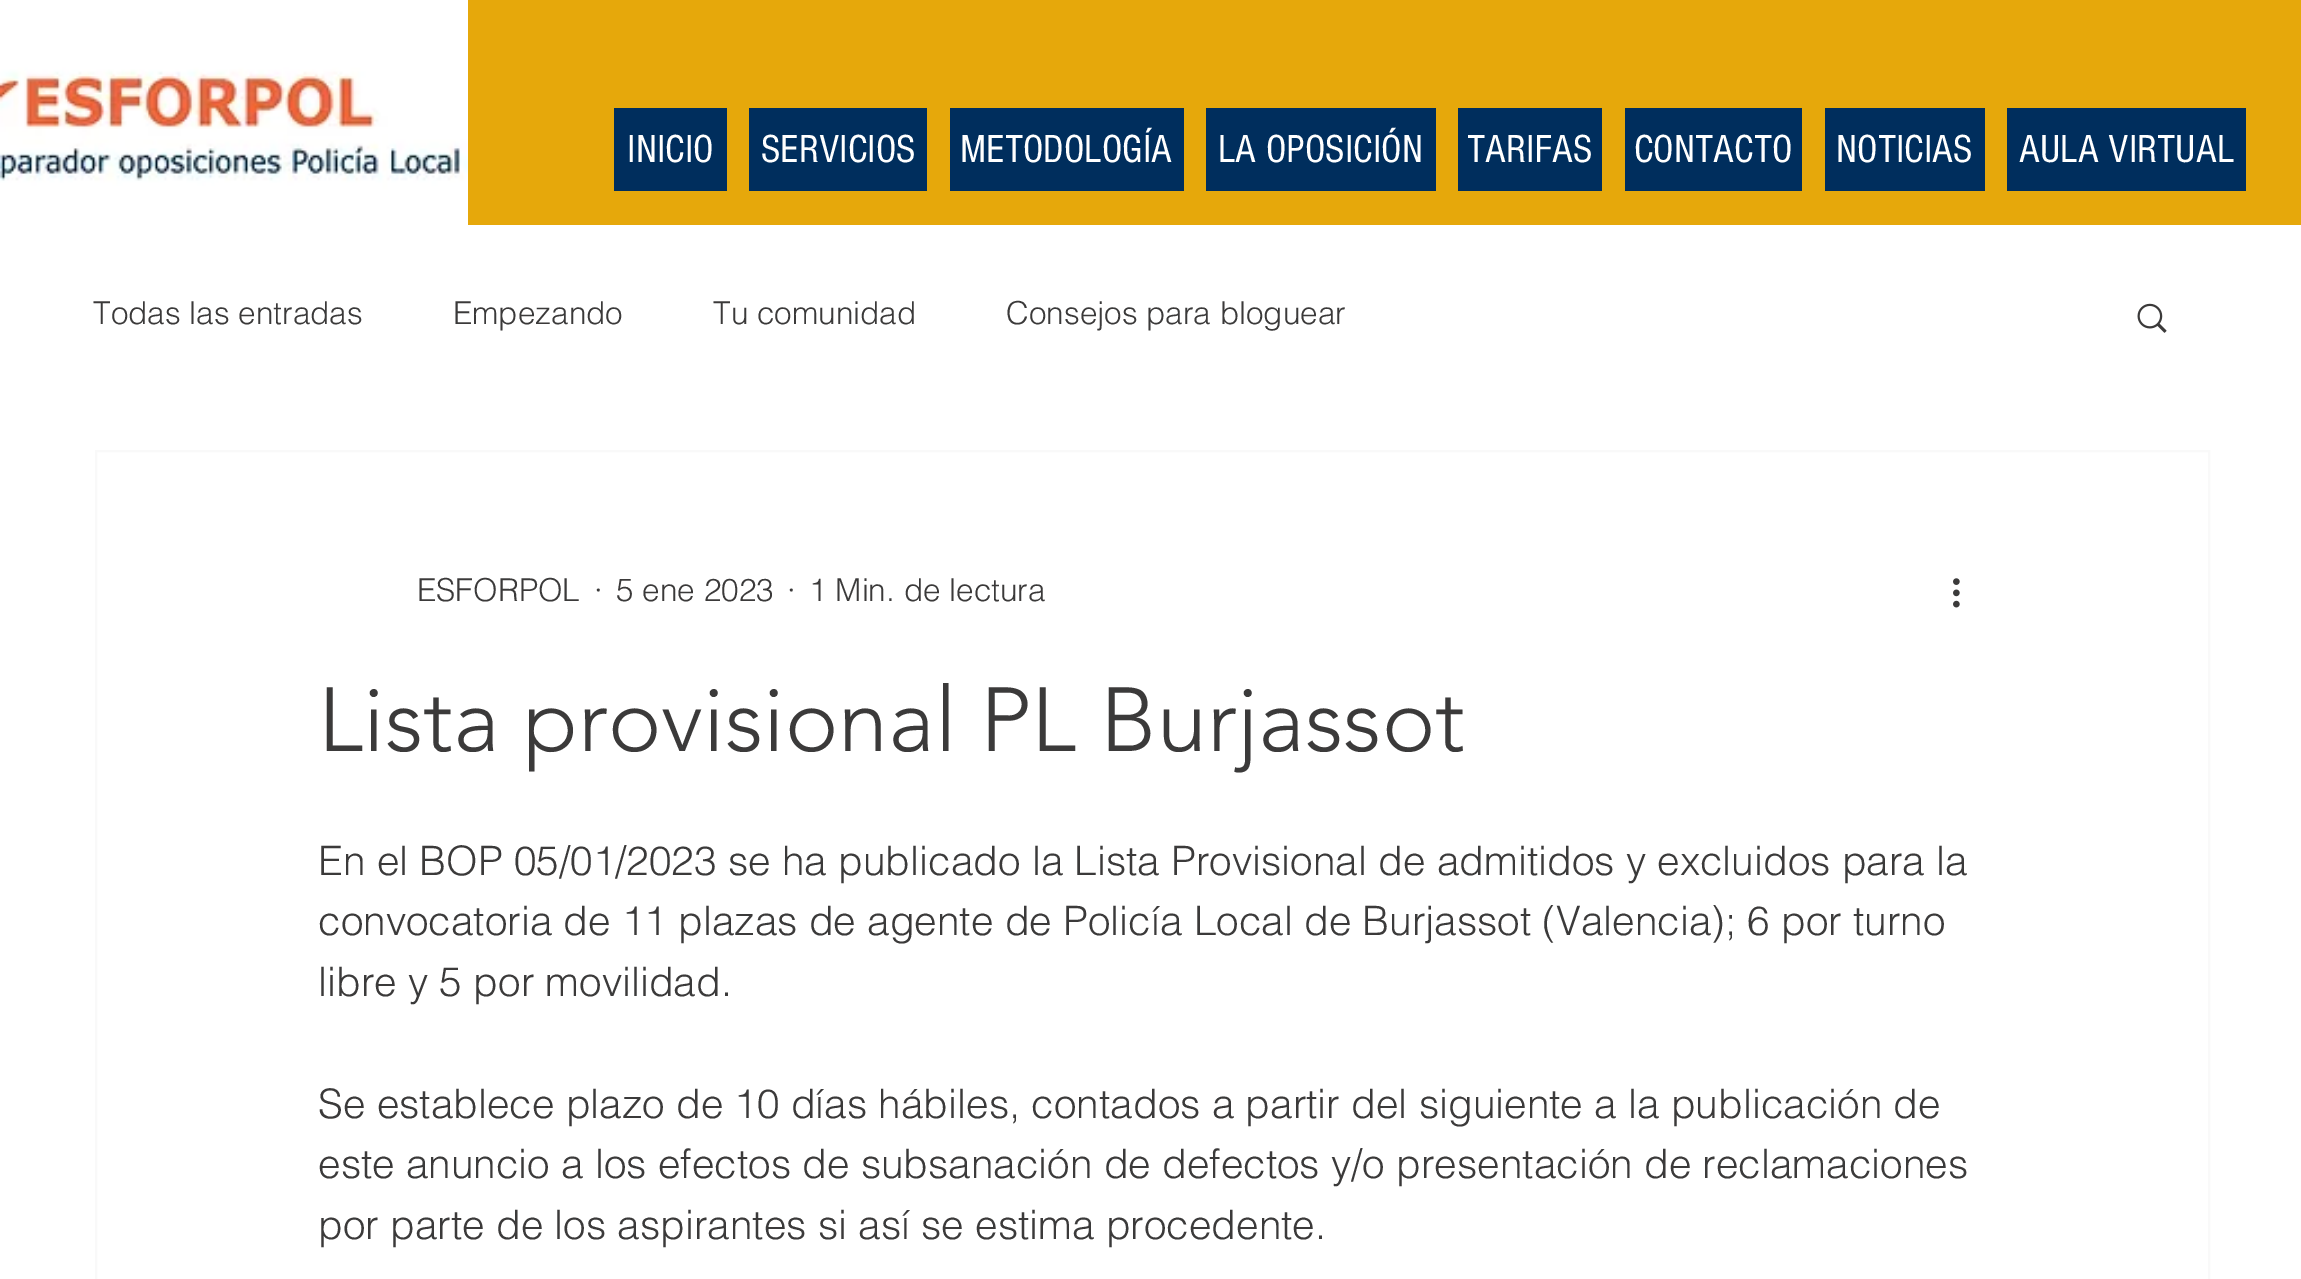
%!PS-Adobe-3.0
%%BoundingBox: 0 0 2301 1279
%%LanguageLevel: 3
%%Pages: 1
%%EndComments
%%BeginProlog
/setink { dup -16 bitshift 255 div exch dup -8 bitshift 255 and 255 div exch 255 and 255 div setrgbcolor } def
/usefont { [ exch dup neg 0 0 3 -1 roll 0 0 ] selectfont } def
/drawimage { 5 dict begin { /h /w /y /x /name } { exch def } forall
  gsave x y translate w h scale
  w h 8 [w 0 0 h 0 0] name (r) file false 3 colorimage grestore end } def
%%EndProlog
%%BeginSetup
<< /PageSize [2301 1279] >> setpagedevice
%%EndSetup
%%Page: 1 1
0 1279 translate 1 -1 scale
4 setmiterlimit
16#FFFFFF setink
0 0 2301 1279 rectfill
(img1.raw) 0 0 468 225 drawimage
16#E6A80B setink
468 0 1833 225 rectfill
16#002E5D setink
614 108 113 83 rectfill
/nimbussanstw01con-Regular 40.5 usefont
16#FFFFFF setink
627 162 moveto (INICIO) show
16#002E5D setink
749 108 178 83 rectfill
16#FFFFFF setink
761 162 moveto (SERVICIOS) show
16#002E5D setink
950 108 234 83 rectfill
16#FFFFFF setink
960 162 moveto (METODOLOGÍA) show
16#002E5D setink
1206 108 230 83 rectfill
16#FFFFFF setink
1218 162 moveto (LA OPOSICIÓN) show
16#002E5D setink
1458 108 144 83 rectfill
16#FFFFFF setink
1467 162 moveto (TARIFAS) show
16#002E5D setink
1625 108 177 83 rectfill
16#FFFFFF setink
1634 162 moveto (CONTACTO) show
16#002E5D setink
1825 108 160 83 rectfill
16#FFFFFF setink
1836 162 moveto (NOTICIAS) show
16#002E5D setink
2007 108 239 83 rectfill
16#FFFFFF setink
2019 162 moveto (AULA VIRTUAL) show
/helvetica-Light 31.5 usefont
16#3B3A3A setink
[
    [(Todas las entradas) 93 324]
    [(Empezando) 453 324]
    [(Tu comunidad) 713 324]
    [(Consejos para bloguear) 1006 324]
] { aload pop moveto show } forall
(img2.raw) 2137 303 30 30 drawimage
16#F9F9F9 setink
2 setlinewidth
96 451 2113 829 rectstroke
16#3B3A3A setink
[
    [(ESFORPOL) 417 601]
    [(·) 594 601]
    [(5 ene 2023) 616 601]
    [(·) 787 601]
    [(1 Min. de lectura) 809 601]
] { aload pop moveto show } forall
(img3.raw) 1953 578 7 30 drawimage
/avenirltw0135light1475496-Light 90 usefont
318 751 moveto (Lista provisional PL Burjassot) show
/helvetica-Light 40.5 usefont
[
    [(En el BOP 05/01/2023 se ha publicado la Lista Provisional de admitidos y excluidos para la) 318 875]
    [(convocatoria de 11 plazas de agente de Policía Local de Burjassot \(Valencia\); 6 por turno) 318 935]
    [(libre y 5 por movilidad.) 318 996]
    [(Se establece plazo de 10 días hábiles, contados a partir del siguiente a la publicación de) 318 1118]
    [(este anuncio a los efectos de subsanación de defectos y/o presentación de reclamaciones) 318 1178]
    [(por parte de los aspirantes si así se estima procedente.) 318 1239]
] { aload pop moveto show } forall
showpage
%%EOF
